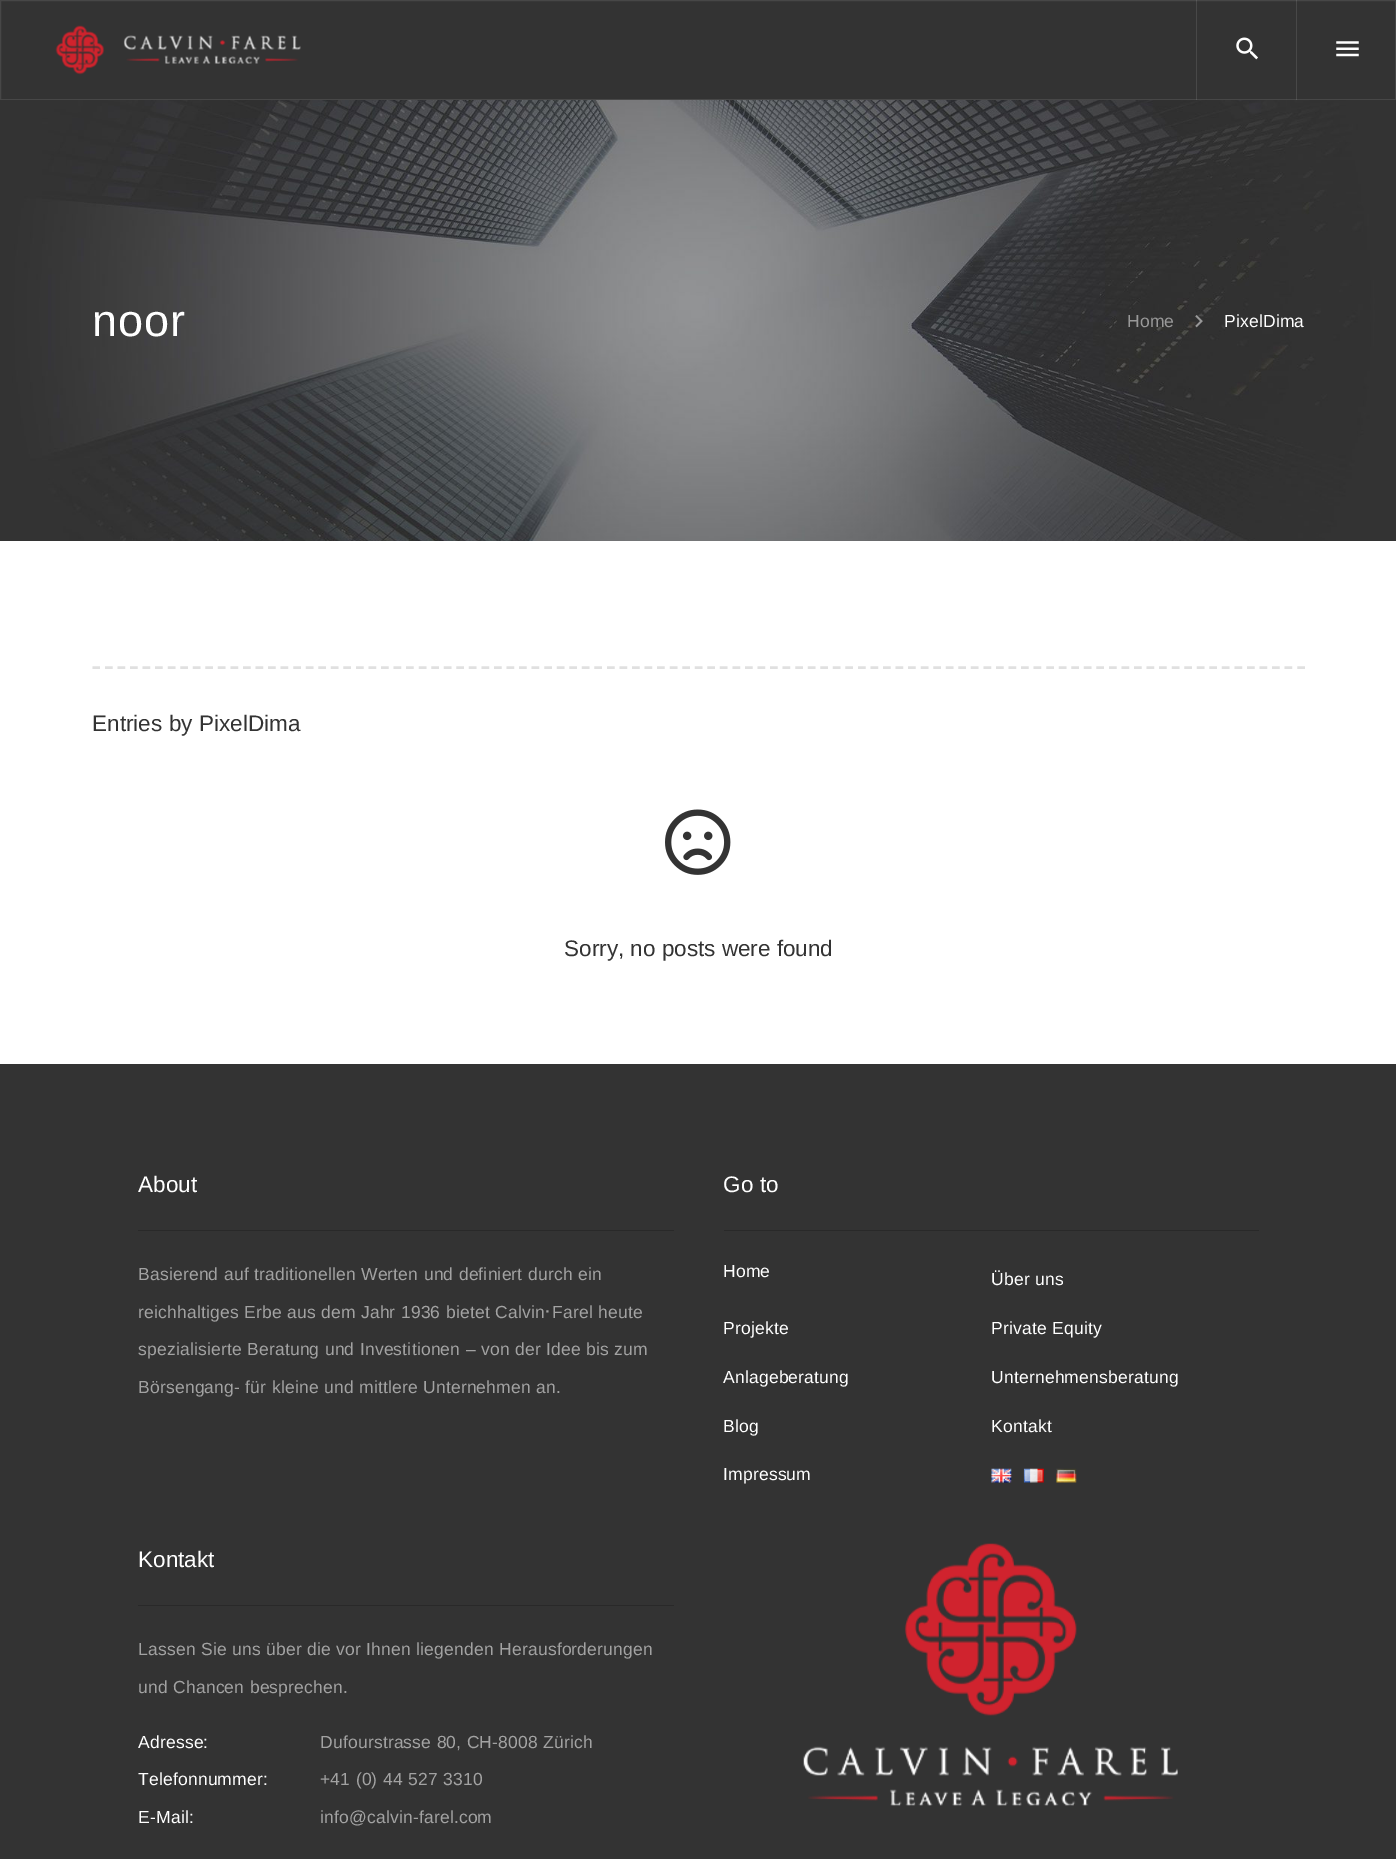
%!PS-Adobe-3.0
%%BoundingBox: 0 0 1396 1859
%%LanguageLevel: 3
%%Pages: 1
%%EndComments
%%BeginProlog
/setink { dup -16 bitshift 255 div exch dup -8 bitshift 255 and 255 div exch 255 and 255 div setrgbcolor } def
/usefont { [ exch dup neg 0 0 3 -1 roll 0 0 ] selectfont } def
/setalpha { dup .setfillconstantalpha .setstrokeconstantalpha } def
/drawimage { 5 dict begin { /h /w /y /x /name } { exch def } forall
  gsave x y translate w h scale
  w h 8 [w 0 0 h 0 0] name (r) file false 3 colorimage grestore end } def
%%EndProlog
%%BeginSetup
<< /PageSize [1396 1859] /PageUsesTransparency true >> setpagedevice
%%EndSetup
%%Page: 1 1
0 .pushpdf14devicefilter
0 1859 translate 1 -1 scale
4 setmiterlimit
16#333333 setink
0 0 1396 1859 rectfill
16#474747 setink
0.5 0.5 1395 99 rectstroke
(img1.raw) 55 25 246 50 drawimage
0.1 setalpha
16#FFFFFF setink
1196 0 1 100 rectfill
1 setalpha
(img2.raw) 1236 37 22 23 drawimage
0.1 setalpha
1296 0 1 100 rectfill
1 setalpha
(img3.raw) 1336 41 23 16 drawimage
(img4.raw) 0 100 1396 441 drawimage
/LiberationSans-Regular 45 usefont
92 336 moveto 1 0 (noor) ashow
/LiberationSans-Regular 17.5 usefont
16#989898 setink
1127 327 moveto 0.18 0 (Home) ashow
(img5.raw) 1195 315 8 13 drawimage
16#FFFFFF setink
1224 327 moveto 0.18 0 (PixelDima) ashow
0 541 1396 523 rectfill
16#E0E0E0 setink
2.5 setlinewidth
[7.5 5.05] 0 setdash
92.5 667.5 moveto 1305 667.5 lineto stroke
/LiberationSans-Regular 22.5 usefont
16#333333 setink
92 731 moveto 0.25 0 32 (Entries by) widthshow
199 731 moveto (PixelDima) show
(img6.raw) 665 809 66 66 drawimage
564 956 moveto (Sorry, no posts were found) show
16#FFFFFF setink
138 1192 moveto (About) show
16#292929 setink
138 1230 536 1 rectfill
/LiberationSans-Regular 17.5 usefont
16#A2A2A2 setink
138 1280 moveto 0.25 0 32 0.18 0 (Basierend auf traditionellen Werten und definiert durch ein) awidthshow
138 1318 moveto 0.25 0 32 0.18 0 (reichhaltiges Erbe aus dem Jahr 1936 bietet Calvin) awidthshow
/IPAGothic-Regular 17.5 usefont
543 1318 moveto 0.18 0 (･) ashow
/LiberationSans-Regular 17.5 usefont
552 1318 moveto 0.25 0 32 0.18 0 (Farel heute) awidthshow
138 1355 moveto 0.25 0 32 0.18 0 (spezialisierte Beratung und Investitionen – von der Idee bis zum) awidthshow
138 1393 moveto 0.25 0 32 0.18 0 (Börsengang- für kleine und mittlere Unternehmen an.) awidthshow
/LiberationSans-Regular 22.5 usefont
16#FFFFFF setink
723 1192 moveto 0.25 0 32 (Go to) widthshow
16#292929 setink
724 1230 535 1 rectfill
/LiberationSans-Regular 17.5 usefont
16#FFFFFF setink
723 1277 moveto 0.18 0 (Home) ashow
991 1285 moveto 0.25 0 32 0.18 0 (Über uns) awidthshow
723 1334 moveto 0.18 0 (Projekte) ashow
991 1334 moveto 0.25 0 32 0.18 0 (Private Equity) awidthshow
723 1383 moveto 0.18 0 (Anlageberatung) ashow
991 1383 moveto 0.18 0 (Unternehmensberatung) ashow
723 1432 moveto 0.18 0 (Blog) ashow
991 1432 moveto 0.18 0 (Kontakt) ashow
723 1480 moveto 0.18 0 (Impressum) ashow
(img7.raw) 991 1468 21 15 drawimage
(img8.raw) 1023 1468 21 15 drawimage
(img9.raw) 1056 1468 21 15 drawimage
/LiberationSans-Regular 22.5 usefont
138 1567 moveto (Kontakt) show
16#292929 setink
138 1605 536 1 rectfill
/LiberationSans-Regular 17.5 usefont
16#A2A2A2 setink
138 1655 moveto 0.25 0 32 0.18 0 (Lassen Sie uns über die vor Ihnen liegenden Herausforderungen) awidthshow
138 1693 moveto 0.25 0 32 0.18 0 (und Chancen besprechen.) awidthshow
16#FFFFFF setink
138 1748 moveto 0.18 0 (Adresse:) ashow
16#A2A2A2 setink
320 1748 moveto 0.25 0 32 0.18 0 (Dufourstrasse 80, CH-8008 Zürich) awidthshow
16#FFFFFF setink
138 1785 moveto 0.18 0 (Telefonnummer:) ashow
16#A2A2A2 setink
320 1785 moveto 0.25 0 32 0.18 0 (+41 \(0\) 44 527 3310) awidthshow
16#FFFFFF setink
138 1823 moveto 0.18 0 (E-Mail:) ashow
16#A2A2A2 setink
320 1823 moveto 0.18 0 (info@calvin-farel.com) ashow
(img10.raw) 803 1543 375 263 drawimage
.poppdf14devicefilter showpage
%%EOF
